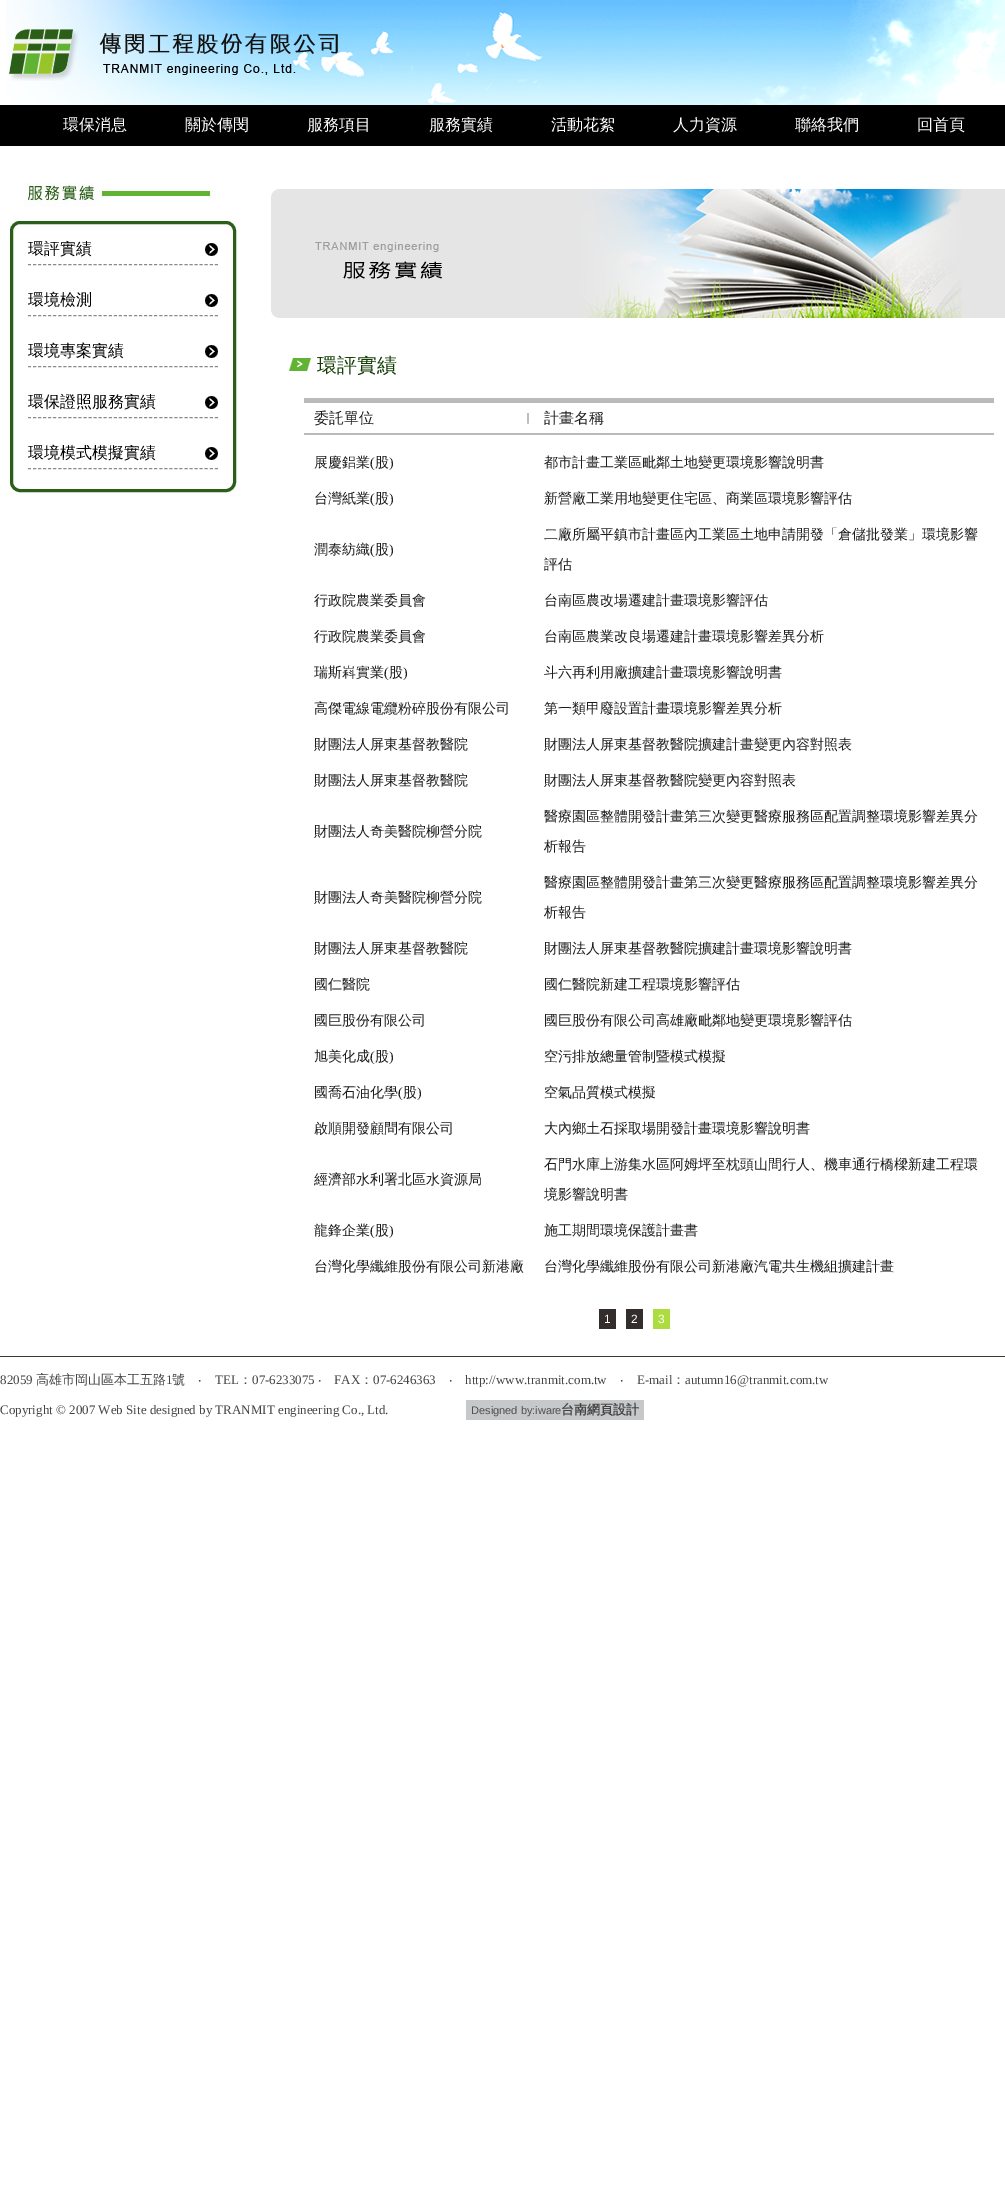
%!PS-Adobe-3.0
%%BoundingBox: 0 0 1005 2209
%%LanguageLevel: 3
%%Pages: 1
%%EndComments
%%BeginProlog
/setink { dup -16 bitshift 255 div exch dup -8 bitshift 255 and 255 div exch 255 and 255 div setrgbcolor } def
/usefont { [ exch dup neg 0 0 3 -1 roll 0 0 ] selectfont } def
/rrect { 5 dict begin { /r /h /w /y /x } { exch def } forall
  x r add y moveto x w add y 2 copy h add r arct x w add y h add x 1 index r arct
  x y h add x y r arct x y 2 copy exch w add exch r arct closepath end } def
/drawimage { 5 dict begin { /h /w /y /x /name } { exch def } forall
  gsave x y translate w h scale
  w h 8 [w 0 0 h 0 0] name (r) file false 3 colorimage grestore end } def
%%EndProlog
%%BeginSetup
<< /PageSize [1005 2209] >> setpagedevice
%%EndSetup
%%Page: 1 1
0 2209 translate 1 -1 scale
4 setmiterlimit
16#FFFFFF setink
0 0 1005 2209 rectfill
16#000000 setink
0 105 1005 41 rectfill
(img1.raw) 6 0 999 105 drawimage
(img2.raw) 9 29 329 52 drawimage
/WenQuanYiZenHei-Medium 16 usefont
16#FFFFFF setink
[
    [(環保消息) 63 130]
    [(關於傳閔) 185 130]
    [(服務項目) 307 130]
    [(服務實績) 429 130]
    [(活動花絮) 551 130]
    [(人力資源) 673 130]
    [(聯絡我們) 795 130]
    [(回首頁) 917 130]
] { aload pop moveto show } forall
(img3.raw) 24 183 192 24 drawimage
16#2B5F19 setink
3 setlinewidth
11.5 222.5 223 268 8.5 rrect stroke
(img4.raw) 205 243 13 13 drawimage
16#908888 setink
1 setlinewidth
[3 2.05] 0 setdash
28 264.5 moveto 218 264.5 lineto stroke
16#000000 setink
28 254 moveto (環評實績) show
(img4.raw) 205 294 13 13 drawimage
16#908888 setink
28 315.5 moveto 218 315.5 lineto stroke
16#000000 setink
28 305 moveto (環境檢測) show
(img4.raw) 205 345 13 13 drawimage
16#908888 setink
28 366.5 moveto 218 366.5 lineto stroke
16#000000 setink
28 356 moveto (環境專案實績) show
(img4.raw) 205 396 13 13 drawimage
16#908888 setink
28 417.5 moveto 218 417.5 lineto stroke
16#000000 setink
28 407 moveto (環保證照服務實績) show
(img4.raw) 205 447 13 13 drawimage
16#908888 setink
28 468.5 moveto 218 468.5 lineto stroke
16#000000 setink
28 458 moveto (環境模式模擬實績) show
(img5.raw) 271 189 734 129 drawimage
(img6.raw) 289 358 22 13 drawimage
/WenQuanYiZenHei-Medium 20 usefont
16#133D04 setink
317 372 moveto (環評實績) show
16#BBB9B9 setink
304 398 690 5 rectfill
304 433 690 2 rectfill
(img7.raw) 527 413 2 11 drawimage
/WenQuanYiZenHei-Medium 15 usefont
16#1C1C1C setink
314 423 moveto (委託單位) show
544 423 moveto (計畫名稱) show
/WenQuanYiZenHei-Medium 14 usefont
314 467 moveto (展慶鋁業) show
/LiberationSerif-Regular 14 usefont
370 467 moveto (\() show
/WenQuanYiZenHei-Medium 14 usefont
375 467 moveto (股) show
/LiberationSerif-Regular 14 usefont
389 467 moveto (\)) show
/WenQuanYiZenHei-Medium 14 usefont
544 467 moveto (都市計畫工業區毗鄰土地變更環境影響說明書) show
314 503 moveto (台灣紙業) show
/LiberationSerif-Regular 14 usefont
370 503 moveto (\() show
/WenQuanYiZenHei-Medium 14 usefont
375 503 moveto (股) show
/LiberationSerif-Regular 14 usefont
389 503 moveto (\)) show
/WenQuanYiZenHei-Medium 14 usefont
544 503 moveto (新營廠工業用地變更住宅區、商業區環境影響評估) show
314 554 moveto (潤泰紡織) show
/LiberationSerif-Regular 14 usefont
370 554 moveto (\() show
/WenQuanYiZenHei-Medium 14 usefont
375 554 moveto (股) show
/LiberationSerif-Regular 14 usefont
389 554 moveto (\)) show
/WenQuanYiZenHei-Medium 14 usefont
[
    [(二廠所屬平鎮市計畫區內工業區土地申請開發「倉儲批發業」環境影響) 544 539]
    [(評估) 544 569]
    [(行政院農業委員會) 314 605]
    [(台南區農改場遷建計畫環境影響評估) 544 605]
    [(行政院農業委員會) 314 641]
    [(台南區農業改良場遷建計畫環境影響差異分析) 544 641]
    [(瑞斯嵙實業) 314 677]
] { aload pop moveto show } forall
/LiberationSerif-Regular 14 usefont
384 677 moveto (\() show
/WenQuanYiZenHei-Medium 14 usefont
389 677 moveto (股) show
/LiberationSerif-Regular 14 usefont
403 677 moveto (\)) show
/WenQuanYiZenHei-Medium 14 usefont
[
    [(斗六再利用廠擴建計畫環境影響說明書) 544 677]
    [(高傑電線電纜粉碎股份有限公司) 314 713]
    [(第一類甲廢設置計畫環境影響差異分析) 544 713]
    [(財團法人屏東基督教醫院) 314 749]
    [(財團法人屏東基督教醫院擴建計畫變更內容對照表) 544 749]
    [(財團法人屏東基督教醫院) 314 785]
    [(財團法人屏東基督教醫院變更內容對照表) 544 785]
    [(財團法人奇美醫院柳營分院) 314 836]
    [(醫療園區整體開發計畫第三次變更醫療服務區配置調整環境影響差異分) 544 821]
    [(析報告) 544 851]
    [(財團法人奇美醫院柳營分院) 314 902]
    [(醫療園區整體開發計畫第三次變更醫療服務區配置調整環境影響差異分) 544 887]
    [(析報告) 544 917]
    [(財團法人屏東基督教醫院) 314 953]
    [(財團法人屏東基督教醫院擴建計畫環境影響說明書) 544 953]
    [(國仁醫院) 314 989]
    [(國仁醫院新建工程環境影響評估) 544 989]
    [(國巨股份有限公司) 314 1025]
    [(國巨股份有限公司高雄廠毗鄰地變更環境影響評估) 544 1025]
    [(旭美化成) 314 1061]
] { aload pop moveto show } forall
/LiberationSerif-Regular 14 usefont
370 1061 moveto (\() show
/WenQuanYiZenHei-Medium 14 usefont
375 1061 moveto (股) show
/LiberationSerif-Regular 14 usefont
389 1061 moveto (\)) show
/WenQuanYiZenHei-Medium 14 usefont
544 1061 moveto (空污排放總量管制暨模式模擬) show
314 1097 moveto (國喬石油化學) show
/LiberationSerif-Regular 14 usefont
398 1097 moveto (\() show
/WenQuanYiZenHei-Medium 14 usefont
403 1097 moveto (股) show
/LiberationSerif-Regular 14 usefont
417 1097 moveto (\)) show
/WenQuanYiZenHei-Medium 14 usefont
[
    [(空氣品質模式模擬) 544 1097]
    [(啟順開發顧問有限公司) 314 1133]
    [(大內鄉土石採取場開發計畫環境影響說明書) 544 1133]
    [(經濟部水利署北區水資源局) 314 1184]
    [(石門水庫上游集水區阿姆坪至枕頭山間行人、機車通行橋樑新建工程環) 544 1169]
    [(境影響說明書) 544 1199]
    [(龍鋒企業) 314 1235]
] { aload pop moveto show } forall
/LiberationSerif-Regular 14 usefont
370 1235 moveto (\() show
/WenQuanYiZenHei-Medium 14 usefont
375 1235 moveto (股) show
/LiberationSerif-Regular 14 usefont
389 1235 moveto (\)) show
/WenQuanYiZenHei-Medium 14 usefont
[
    [(施工期間環境保護計畫書) 544 1235]
    [(台灣化學纖維股份有限公司新港廠) 314 1271]
    [(台灣化學纖維股份有限公司新港廠汽電共生機組擴建計畫) 544 1271]
] { aload pop moveto show } forall
16#332E2B setink
599 1309 17 20 rectfill
/LiberationSans-Regular 12 usefont
16#FFFFFF setink
604 1323 moveto (1) show
16#332E2B setink
626 1309 17 20 rectfill
16#FFFFFF setink
631 1323 moveto (2) show
16#ADDC3E setink
653 1309 17 20 rectfill
16#FFFFFF setink
658 1323 moveto (3) show
16#38382E setink
0 1356 1005 1 rectfill
/LiberationSerif-Regular 13 usefont
16#444445 setink
0 1384 moveto (82059) show
/WenQuanYiZenHei-Medium 13 usefont
36 1384 moveto (高雄市岡山區本工五路) show
/LiberationSerif-Regular 13 usefont
166 1384 moveto (1) show
/WenQuanYiZenHei-Medium 13 usefont
172 1384 moveto (號) show
/NotoSans-Regular 13 usefont
198 1384 moveto (‧) show
/LiberationSerif-Regular 13 usefont
215 1384 moveto (TEL) show
/WenQuanYiZenHei-Medium 13 usefont
239 1384 moveto (：) show
/LiberationSerif-Regular 13 usefont
252 1384 moveto (07-6233075) show
/NotoSans-Regular 13 usefont
318 1384 moveto (‧) show
/LiberationSerif-Regular 13 usefont
334 1384 moveto (FAX) show
/WenQuanYiZenHei-Medium 13 usefont
360 1384 moveto (：) show
/LiberationSerif-Regular 13 usefont
373 1384 moveto (07-6246363) show
/NotoSans-Regular 13 usefont
449 1384 moveto (‧) show
/LiberationSerif-Regular 13 usefont
465 1384 moveto (http://www.tranmit.com.tw) show
/NotoSans-Regular 13 usefont
620 1384 moveto (‧) show
/LiberationSerif-Regular 13 usefont
637 1384 moveto (E-mail) show
/WenQuanYiZenHei-Medium 13 usefont
672 1384 moveto (：) show
/LiberationSerif-Regular 13 usefont
685 1384 moveto (autumn16@tranmit.com.tw) show
0 1414 moveto (Copyright © 2007 Web Site designed by TRANMIT engineering Co., Ltd.) show
16#C7C8C9 setink
466 1400 178 20 rectfill
/LiberationSans-Regular 11 usefont
16#4F5050 setink
471 1414 moveto (Designed by:iware) show
/WenQuanYiZenHei-Bold 13 usefont
16#444445 setink
561 1414 moveto (台南網頁設計) show
showpage
%%EOF
